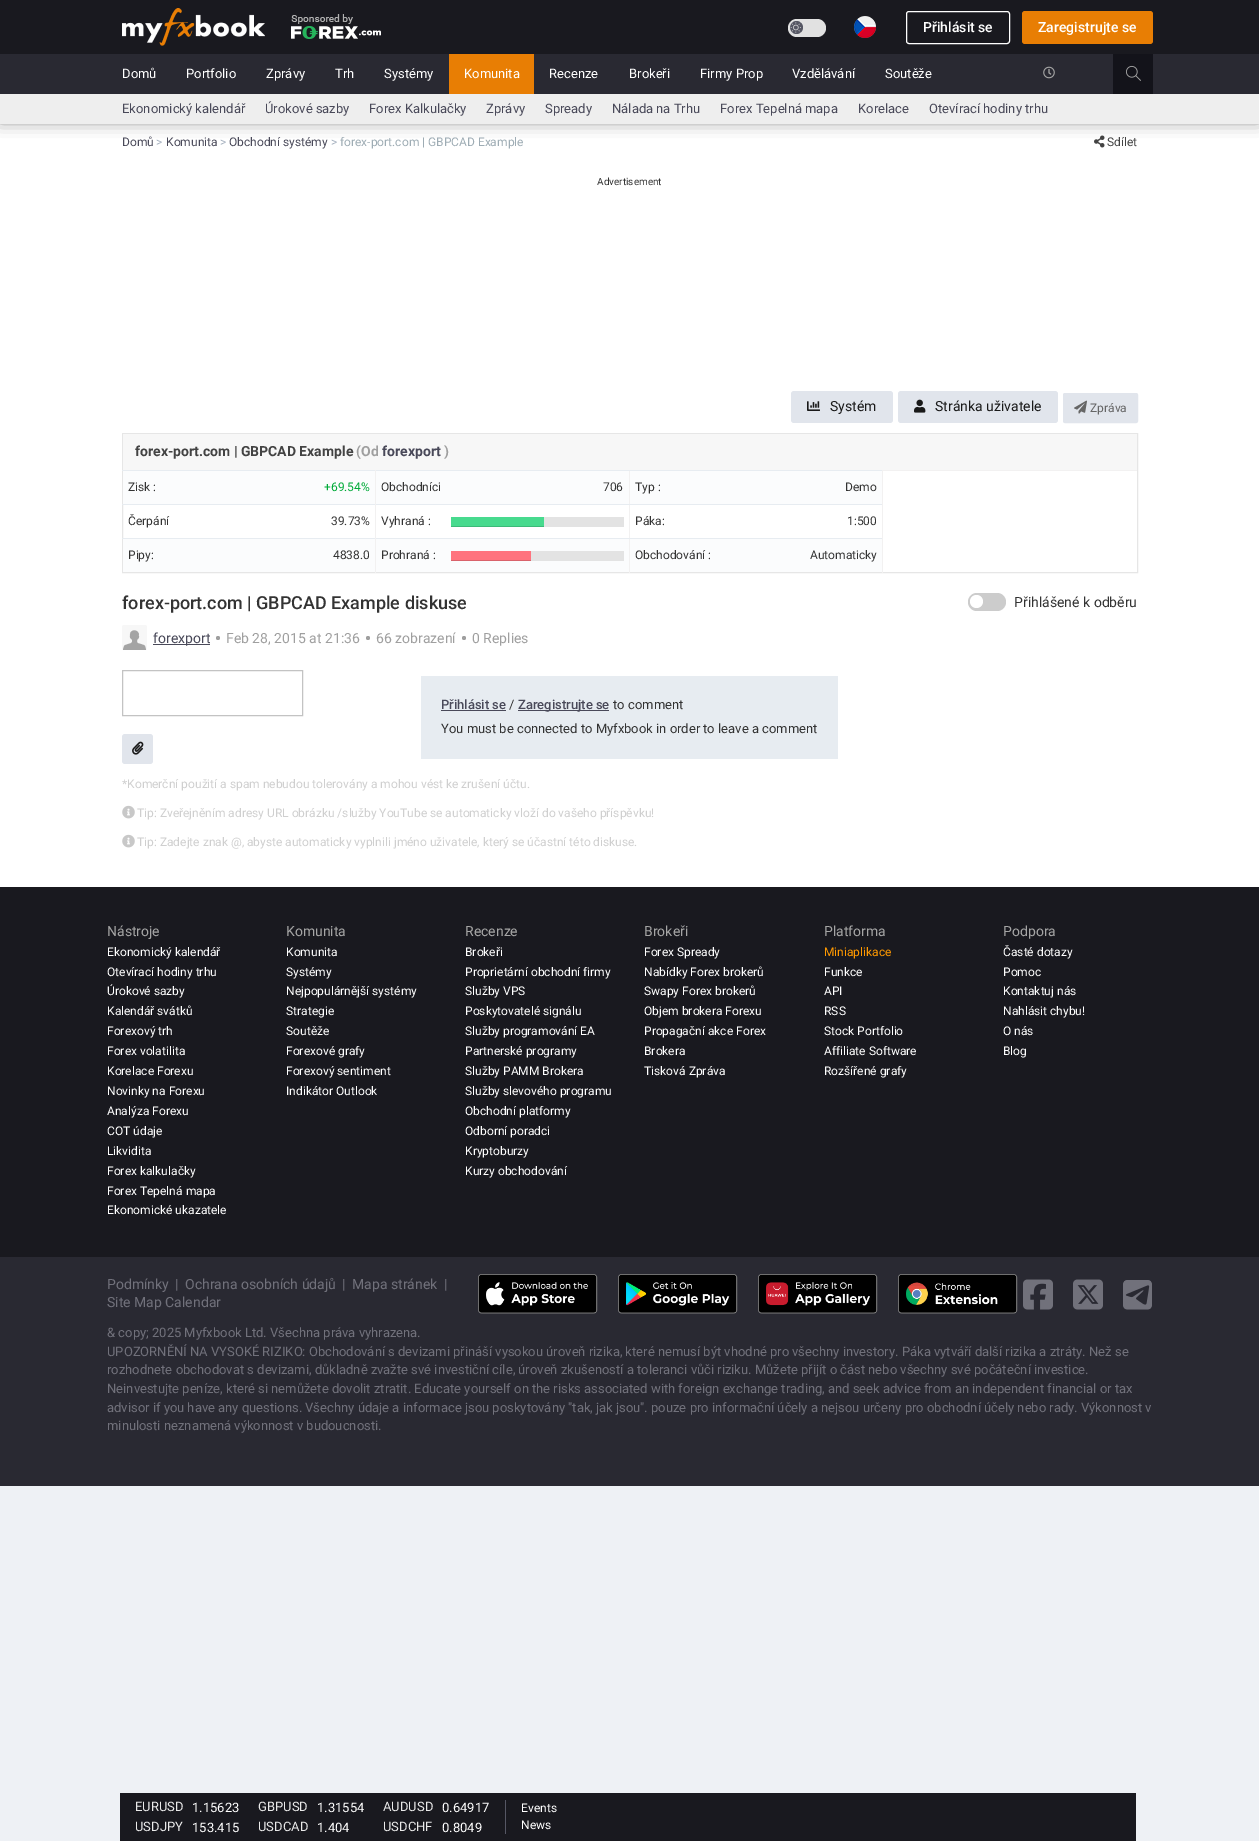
%!PS-Adobe-3.0
%%BoundingBox: 0 0 1259 1841
%%LanguageLevel: 3
%%Pages: 1
%%EndComments
%%BeginProlog
/setink { dup -16 bitshift 255 div exch dup -8 bitshift 255 and 255 div exch 255 and 255 div setrgbcolor } def
/usefont { [ exch dup neg 0 0 3 -1 roll 0 0 ] selectfont } def
/setalpha { dup .setfillconstantalpha .setstrokeconstantalpha } def
/disc { newpath 0 360 arc closepath } def
/rrect { 5 dict begin { /r /h /w /y /x } { exch def } forall
  x r add y moveto x w add y 2 copy h add r arct x w add y h add x 1 index r arct
  x y h add x y r arct x y 2 copy exch w add exch r arct closepath end } def
/softshadow { 12 dict begin { /a /b /q /h /w /y /x } { exch def } forall gsave /was 0 def
  9 -2 -9 { dup b mul 4 div /e exch def 1 sub .425 mul 2.718 exch exp 1 add a .99 .min exch div /now exch def
    1 1 now sub 1 was sub div sub setalpha /was now def
    w h .min e 2 mul add 0 gt { x e sub y e sub w e 2 mul add h e 2 mul add
      q e add b .6 mul add w h .min 2 div e add .min 0 .max rrect fill } if } for grestore end } def
/drawimage { 5 dict begin { /h /w /y /x /name } { exch def } forall
  gsave x y translate w h scale
  w h 8 [w 0 0 h 0 0] name (r) file false 3 colorimage grestore end } def
%%EndProlog
%%BeginSetup
<< /PageSize [1259 1841] /PageUsesTransparency true >> setpagedevice
%%EndSetup
%%Page: 1 1
0 .pushpdf14devicefilter
0 1841 translate 1 -1 scale
4 setmiterlimit
16#EEF1F5 setink
0 0 1259 1841 rectfill
16#19191F setink
0 0 1259 54 rectfill
(img1.raw) 122 8 143 38 drawimage
(img2.raw) 291 14 90 25 drawimage
16#E1E1E1 setink
788 19 38 18 9 rrect fill
16#565764 setink
796.5 27.5 6.5 disc fill
(img3.raw) 790 22 11 11 drawimage
(img4.raw) 854 16 22 22 drawimage
16#FFFFFF setink
906.5 11.5 103 32 2.5 rrect stroke
/Roboto-Medium 14 usefont
923 32 moveto (Přihlásit se) show
16#E87E04 setink
1022 11 131 33 3 rrect fill
16#FFFFFF setink
1038 32 moveto (Zaregistrujte se) show
0 124 1259 763 rectfill
(img7.raw) 1094 135 11 13 drawimage
16#000000 setink
0 89 1259 30 0 8.5 0.64 softshadow
16#292932 setink
0 54 1259 40 rectfill
/Roboto-Regular 13 usefont
16#FFFFFF setink
[
    [(Domů) 122 78]
    [(Portfolio) 186 78]
    [(Zprávy) 266 78]
    [(Trh) 335 78]
    [(Systémy) 384 78]
] { aload pop moveto show } forall
16#E87E04 setink
449 54 85 40 rectfill
16#FFFFFF setink
[
    [(Komunita) 464 78]
    [(Recenze) 549 78]
    [(Brokeři) 629 78]
    [(Firmy Prop) 700 78]
    [(Vzdělávání) 792 78]
    [(Soutěže) 885 78]
] { aload pop moveto show } forall
(img5.raw) 1043 66 12 13 drawimage
16#13131A setink
1113 54 40 40 rectfill
(img6.raw) 1126 65 15 16 drawimage
16#EEEEEE setink
0 94 1259 30 rectfill
16#494959 setink
[
    [(Ekonomický kalendář) 122 113]
    [(Úrokové sazby) 265 113]
    [(Forex Kalkulačky) 369 113]
    [(Zprávy) 486 113]
    [(Spready) 545 113]
    [(Nálada na Trhu) 612 113]
    [(Forex Tepelná mapa) 720 113]
    [(Korelace) 858 113]
    [(Otevírací hodiny trhu) 929 113]
] { aload pop moveto show } forall
/Roboto-Regular 12 usefont
122 146 moveto (Domů) show
16#A7B2C0 setink
156 146 moveto (>) show
16#494959 setink
166 146 moveto (Komunita) show
16#A7B2C0 setink
220 146 moveto (>) show
16#494959 setink
229 146 moveto (Obchodní systémy) show
16#A7B2C0 setink
331 146 moveto (>) show
16#9EACB4 setink
340 146 moveto (forex-port.com | GBPCAD Example) show
16#434343 setink
1107 146 moveto (Sdílet) show
/Roboto-Regular 10 usefont
16#333333 setink
597 185 moveto (Advertisement) show
16#E1E5EC setink
791 391 102 32 3 rrect fill
(img8.raw) 807 401 13 10 drawimage
/Roboto-Regular 14 usefont
16#191919 setink
830 411 moveto (Systém) show
16#E1E5EC setink
898 391 160 32 3 rrect fill
(img9.raw) 914 399 12 14 drawimage
16#191919 setink
935 411 moveto (Stránka uživatele) show
16#E1E5EC setink
1063.5 393.5 74 29 1.5 rrect gsave fill grestore
stroke
(img10.raw) 1074 400 13 14 drawimage
/Roboto-Regular 12 usefont
16#666666 setink
1090 412 moveto (Zpráva) show
16#E6E6E6 setink
122.5 433.5 1015 139 rectstroke
16#F7F7F7 setink
123 434 1014 36 rectfill
/Roboto-Bold 14 usefont
16#434343 setink
135 456 moveto (forex-port.com | GBPCAD Example) show
16#9F9F9F setink
356 456 moveto (\(Od) show
16#494959 setink
382 456 moveto (forexport) show
16#9F9F9F setink
444 456 moveto (\)) show
16#F2F1F1 setink
883 470 254 1 rectfill
16#FBFCFD setink
123 471 252 33 rectfill
/Roboto-Regular 12 usefont
16#333333 setink
128 491 moveto (Zisk :) show
[
    [122 470 254 1 16#E7ECF1]
    [122 504 254 1 16#E7ECF1]
    [122 538 254 1 16#E7ECF1]
    [375 538 1 35 16#F2F1F1]
    [375 504 1 35 16#F2F1F1]
    [375 470 1 35 16#F2F1F1]
] { aload pop setink rectfill } forall
16#00AA38 setink
324 491 moveto (+69.54%) show
16#333333 setink
128 525 moveto (Čerpání) show
331 525 moveto (39.73%) show
16#FBFCFD setink
123 539 252 33 rectfill
16#333333 setink
128 559 moveto (Pipy:) show
333 559 moveto (4838.0) show
16#FBFCFD setink
376 471 253 33 rectfill
16#333333 setink
381 491 moveto (Obchodníci) show
[
    [376 470 254 1 16#E7ECF1]
    [376 504 254 1 16#E7ECF1]
    [376 538 254 1 16#E7ECF1]
    [629 538 1 35 16#F2F1F1]
    [629 504 1 35 16#F2F1F1]
    [629 470 1 35 16#F2F1F1]
] { aload pop setink rectfill } forall
16#333333 setink
603 491 moveto (706) show
[
    [544 517 80 10 16#E3E3E3]
    [451 517 93 9 16#47DA8E]
    [451 526 93 1 16#3CB979]
] { aload pop setink rectfill } forall
16#333333 setink
381 525 moveto (Vyhraná :) show
[
    [376 539 253 33 16#FBFCFD]
    [531 551 93 10 16#E3E3E3]
    [451 551 80 9 16#FF737E]
    [451 560 80 1 16#D9626B]
] { aload pop setink rectfill } forall
16#333333 setink
381 559 moveto (Prohraná :) show
16#FBFCFD setink
630 471 252 33 rectfill
16#333333 setink
635 491 moveto (Typ :) show
[
    [629 470 254 1 16#E7ECF1]
    [629 504 254 1 16#E7ECF1]
    [629 538 254 1 16#E7ECF1]
    [882 538 1 35 16#F2F1F1]
    [882 504 1 35 16#F2F1F1]
    [882 470 1 35 16#F2F1F1]
] { aload pop setink rectfill } forall
16#333333 setink
[
    [(Demo) 845 491]
    [(Páka:) 635 525]
    [(1:500) 847 525]
] { aload pop moveto show } forall
16#FBFCFD setink
630 539 252 33 rectfill
16#333333 setink
635 559 moveto (Obchodování :) show
810 559 moveto (Automaticky) show
/Roboto-Medium 18 usefont
122 609 moveto (forex-port.com | GBPCAD Example diskuse) show
16#CCCCCC setink
968 593 38 18 9 rrect fill
16#FFFFFF setink
976.5 601.5 6.5 disc fill
/Roboto-Regular 14 usefont
16#333333 setink
1014 607 moveto (Přihlášené k odběru) show
(img11.raw) 122 625 25 25 drawimage
16#494959 setink
153 644 57 1 rectfill
153 643 moveto (forexport) show
16#9F9F9F setink
218 638 2 disc fill
226 643 moveto (Feb 28, 2015 at 21:36) show
368 638 2 disc fill
376 643 moveto (66 zobrazení) show
464 638 2 disc fill
472 643 moveto (0 Replies) show
16#C3C3C3 setink
122.5 670.5 180 45 rectstroke
16#E7ECF1 setink
421 676 417 83 rectfill
/Roboto-Medium 13 usefont
16#494959 setink
441 709 moveto (Přihlásit se) show
441 710 65 1 rectfill
/Roboto-Regular 13 usefont
16#333333 setink
509 709 moveto (/) show
16#494959 setink
518 710 91 1 rectfill
/Roboto-Medium 13 usefont
518 709 moveto (Zaregistrujte se) show
/Roboto-Regular 13 usefont
16#333333 setink
613 709 moveto (to comment) show
441 733 moveto (You must be connected to Myfxbook in order to leave a comment) show
16#E1E5EC setink
122 734 31 30 3 rrect fill
(img12.raw) 132 741 12 14 drawimage
/Roboto-Regular 12 usefont
16#CFCFCF setink
122 788 moveto (*Komerční použití a spam nebudou tolerovány a mohou vést ke zrušení účtu.) show
(img13.raw) 122 805 13 14 drawimage
137 817 moveto (Tip: Zveřejněním adresy URL obrázku /služby YouTube se automaticky vloží do vašeho příspěvku!) show
(img13.raw) 122 834 13 14 drawimage
137 846 moveto (Tip: Zadejte znak @, abyste automaticky vyplnili jméno uživatele, který se účastní této diskuse.) show
16#19191F setink
0 887 1259 370 rectfill
/Roboto-Regular 14 usefont
16#A5A5A5 setink
107 936 moveto (Nástroje) show
/Roboto-Regular 12 usefont
16#FFFFFF setink
[
    [(Ekonomický kalendář) 107 956]
    [(Otevírací hodiny trhu) 107 976]
    [(Úrokové sazby) 107 995]
    [(Kalendář svátků) 107 1015]
    [(Forexový trh) 107 1035]
    [(Forex volatilita) 107 1055]
    [(Korelace Forexu) 107 1075]
    [(Novinky na Forexu) 107 1095]
    [(Analýza Forexu) 107 1115]
    [(COT údaje) 107 1135]
    [(Likvidita) 107 1155]
    [(Forex kalkulačky) 107 1175]
    [(Forex Tepelná mapa) 107 1195]
    [(Ekonomické ukazatele) 107 1214]
] { aload pop moveto show } forall
/Roboto-Regular 14 usefont
16#A5A5A5 setink
286 936 moveto (Komunita) show
/Roboto-Regular 12 usefont
16#FFFFFF setink
[
    [(Komunita) 286 956]
    [(Systémy) 286 976]
    [(Nejpopulárnější systémy) 286 995]
    [(Strategie) 286 1015]
    [(Soutěže) 286 1035]
    [(Forexové grafy) 286 1055]
    [(Forexový sentiment) 286 1075]
    [(Indikátor Outlook) 286 1095]
] { aload pop moveto show } forall
/Roboto-Regular 14 usefont
16#A5A5A5 setink
465 936 moveto (Recenze) show
/Roboto-Regular 12 usefont
16#FFFFFF setink
[
    [(Brokeři) 465 956]
    [(Proprietární obchodní firmy) 465 976]
    [(Služby VPS) 465 995]
    [(Poskytovatelé signálu) 465 1015]
    [(Služby programování EA) 465 1035]
    [(Partnerské programy) 465 1055]
    [(Služby PAMM Brokera) 465 1075]
    [(Služby slevového programu) 465 1095]
    [(Obchodní platformy) 465 1115]
    [(Odborní poradci) 465 1135]
    [(Kryptoburzy) 465 1155]
    [(Kurzy obchodování) 465 1175]
] { aload pop moveto show } forall
/Roboto-Regular 14 usefont
16#A5A5A5 setink
644 936 moveto (Brokeři) show
/Roboto-Regular 12 usefont
16#FFFFFF setink
[
    [(Forex Spready) 644 956]
    [(Nabídky Forex brokerů) 644 976]
    [(Swapy Forex brokerů) 644 995]
    [(Objem brokera Forexu) 644 1015]
    [(Propagační akce Forex) 644 1035]
    [(Brokera) 644 1055]
    [(Tisková Zpráva) 644 1075]
] { aload pop moveto show } forall
/Roboto-Regular 14 usefont
16#A5A5A5 setink
824 936 moveto (Platforma) show
/Roboto-Regular 12 usefont
16#FF9900 setink
824 956 moveto (Miniaplikace) show
16#FFFFFF setink
[
    [(Funkce) 824 976]
    [(API) 824 995]
    [(RSS) 824 1015]
    [(Stock Portfolio) 824 1035]
    [(Affiliate Software) 824 1055]
    [(Rozšířené grafy) 824 1075]
] { aload pop moveto show } forall
/Roboto-Regular 14 usefont
16#A5A5A5 setink
1003 936 moveto (Podpora) show
/Roboto-Regular 12 usefont
16#FFFFFF setink
[
    [(Časté dotazy) 1003 956]
    [(Pomoc) 1003 976]
    [(Kontaktuj nás) 1003 995]
    [(Nahlásit chybu!) 1003 1015]
    [(O nás) 1003 1035]
    [(Blog) 1003 1055]
] { aload pop moveto show } forall
16#292932 setink
0 1257 1259 229 rectfill
/Roboto-Regular 14 usefont
16#71717B setink
[
    [(Podmínky) 107 1289]
    [(|) 175 1289]
    [(Ochrana osobních údajů) 185 1289]
    [(|) 342 1289]
    [(Mapa stránek) 352 1289]
    [(|) 444 1289]
    [(Site Map Calendar) 107 1307]
] { aload pop moveto show } forall
(img14.raw) 478 1274 120 40 drawimage
(img15.raw) 618 1274 120 40 drawimage
(img16.raw) 758 1274 120 40 drawimage
(img17.raw) 898 1274 120 40 drawimage
(img18.raw) 1023 1279 30 31 drawimage
(img19.raw) 1073 1279 30 31 drawimage
(img20.raw) 1123 1280 29 30 drawimage
/Roboto-Regular 13 usefont
[
    [(& copy; 2025 Myfxbook Ltd. Všechna práva vyhrazena.) 107 1337]
    [(UPOZORNĚNÍ NA VYSOKÉ RIZIKO: Obchodování s devizami přináší vysokou úroveň rizika, které nemusí být vhodné pro všechny investory. Páka vytváří další rizika a ztráty. Než se) 107 1356]
    [(rozhodnete obchodovat s devizami, důkladně zvažte své investiční cíle, úroveň zkušeností a toleranci vůči riziku. Můžete přijít o část nebo všechny své počáteční investice.) 107 1374]
    [(Neinvestujte peníze, které si nemůžete dovolit ztratit. Educate yourself on the risks associated with foreign exchange trading, and seek advice from an independent financial or tax) 107 1393]
    [(advisor if you have any questions. Všechny údaje a informace jsou poskytovány "tak, jak jsou". pouze pro informační účely a nejsou určeny pro obchodní účely nebo rady. Výkonnost v) 107 1412]
    [(minulosti neznamená výkonnost v budoucnosti.) 107 1430]
] { aload pop moveto show } forall
16#19191F setink
120 1793 1016 48 rectfill
16#EAEAEA setink
135 1811 moveto (EURUSD) show
16#FFFFFF setink
192 1812 moveto (1.15623) show
16#EAEAEA setink
258 1811 moveto (GBPUSD) show
16#FFFFFF setink
317 1812 moveto (1.31554) show
16#EAEAEA setink
383 1811 moveto (AUDUSD) show
16#FFFFFF setink
442 1812 moveto (0.64917) show
16#EAEAEA setink
135 1831 moveto (USDJPY) show
16#FFFFFF setink
192 1832 moveto (153.415) show
16#EAEAEA setink
258 1831 moveto (USDCAD) show
16#FFFFFF setink
317 1832 moveto (1.404) show
16#EAEAEA setink
383 1831 moveto (USDCHF) show
16#FFFFFF setink
442 1832 moveto (0.8049) show
16#565764 setink
505 1800 1 34 rectfill
/Roboto-Regular 12 usefont
16#FFFFFF setink
521 1812 moveto (Events) show
521 1829 moveto (News) show
.poppdf14devicefilter showpage
%%EOF
